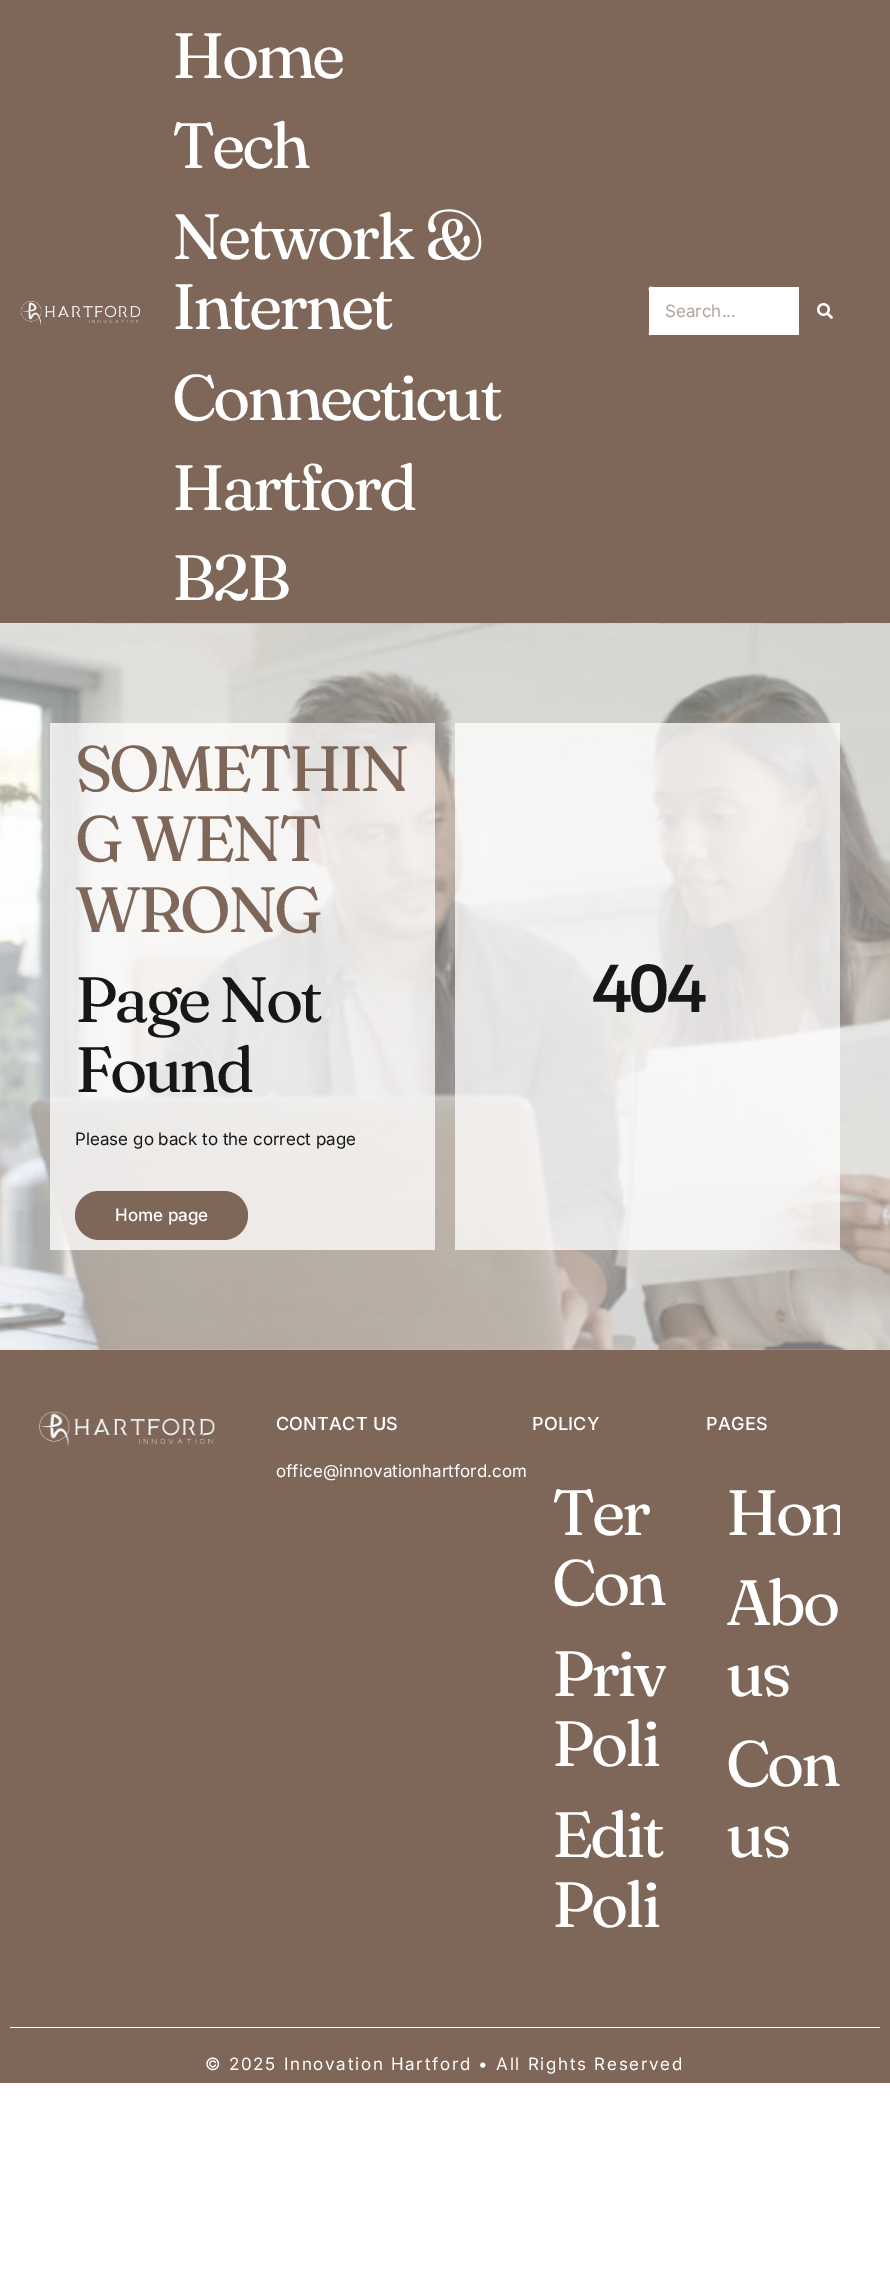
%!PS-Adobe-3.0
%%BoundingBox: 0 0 890 2278
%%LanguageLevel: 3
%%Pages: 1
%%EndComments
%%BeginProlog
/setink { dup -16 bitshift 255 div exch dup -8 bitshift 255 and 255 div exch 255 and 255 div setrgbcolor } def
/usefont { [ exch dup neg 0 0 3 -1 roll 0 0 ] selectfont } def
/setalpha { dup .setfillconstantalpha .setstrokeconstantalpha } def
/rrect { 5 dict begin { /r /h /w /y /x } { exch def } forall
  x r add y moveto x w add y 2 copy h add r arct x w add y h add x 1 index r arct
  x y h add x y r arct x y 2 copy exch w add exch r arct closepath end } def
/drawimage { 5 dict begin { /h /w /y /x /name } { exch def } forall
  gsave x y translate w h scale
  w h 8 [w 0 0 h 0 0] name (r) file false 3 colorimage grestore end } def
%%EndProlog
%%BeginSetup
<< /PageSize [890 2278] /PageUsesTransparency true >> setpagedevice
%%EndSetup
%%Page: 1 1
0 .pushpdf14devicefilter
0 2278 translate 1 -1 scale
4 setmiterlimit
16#FFFFFF setink
0 0 890 2278 rectfill
16#7E6759 setink
0 0 890 623 rectfill
(img1.raw) 20 301 121 24 drawimage
/Fraunces-Regular 64 usefont
16#FFFFFF setink
172 78 moveto -3.25 0 (Home) ashow
172 168 moveto -3.25 0 (Tech) ashow
172 259 moveto -3.25 0 (Network &) ashow
172 329 moveto -3.25 0 (Internet) ashow
172 420 moveto -3.25 0 (Connecticut) ashow
172 510 moveto -3.25 0 (Hartford) ashow
172 600 moveto -3.25 0 (B2B) ashow
653 286 moveto 800 286 lineto 800 336 lineto 653 336 lineto 650 336 648 334 648 331 curveto 648 291 lineto 648 288 650 286 653 286 curveto closepath fill
16#7E6759 setink
648 291 moveto 648 331 lineto 648 332 648 333 649 334 curveto 649 288 lineto closepath 653 286 moveto 650 287 lineto 799 287 lineto 799 335 lineto 650 335 lineto 651 336 652 336 653 336 curveto 800 336 lineto 800 286 lineto closepath eofill
/Inter-Regular 17 usefont
16#B2A49B setink
665 317 moveto (Search...) show
(img2.raw) 817 303 16 16 drawimage
(img3.raw) 0 623 890 727 drawimage
0.76 setalpha
16#FFFEFE setink
50 723 385 527 rectfill
/Fraunces-Regular 64 usefont
1 setalpha
16#7E6759 setink
75 791 moveto -3.25 0 (SOMETHIN) ashow
75 861 moveto -3.25 0 (G WENT) ashow
75 932 moveto -3.25 0 (WRONG) ashow
16#171717 setink
75 1022 moveto -3.25 0 (Page Not) ashow
75 1092 moveto -3.25 0 (Found) ashow
/Inter-Regular 17 usefont
75 1145 moveto (Please go back to the correct page) show
16#7E6759 setink
75 1191 173 49 24.5 rrect fill
/Inter-Medium 17 usefont
16#FFFFFF setink
115 1221 moveto (Home page) show
0.76 setalpha
16#FFFEFE setink
455 723 385 527 rectfill
/EncodeSansCondensed-SemiBold 64 usefont
1 setalpha
16#171717 setink
592 1012 moveto -3.25 0 (404) ashow
16#7E6759 setink
0 1350 890 733 rectfill
(img4.raw) 39 1411 176 36 drawimage
/Inter-Medium 18 usefont
16#FFFFFF setink
276 1430 moveto 0.25 0 (CONTACT US) ashow
/Inter-Regular 17 usefont
276 1477 moveto (office@innovationhartford.com) show
/Inter-Medium 18 usefont
532 1430 moveto 0.25 0 (POLICY) ashow
/Fraunces-Regular 64 usefont
552 1535 moveto -3.25 0 (Ter) ashow
552 1605 moveto -3.25 0 (Con) ashow
gsave
532 1467 134 482 rectclip
552 1696 moveto -3.25 0 (Priv) ashow
grestore
552 1766 moveto -3.25 0 (Poli) ashow
552 1857 moveto -3.25 0 (Edit) ashow
552 1927 moveto -3.25 0 (Poli) ashow
/Inter-Medium 18 usefont
706 1430 moveto 0.25 0 (PAGES) ashow
gsave
706 1467 134 412 rectclip
/Fraunces-Regular 64 usefont
726 1535 moveto -3.25 0 (Hom) ashow
grestore
/Fraunces-Regular 64 usefont
726 1625 moveto -3.25 0 (Abo) ashow
726 1696 moveto -3.25 0 (us) ashow
726 1786 moveto -3.25 0 (Con) ashow
726 1857 moveto -3.25 0 (us) ashow
10 2027 870 1 rectfill
/Inter-Regular 17 usefont
205 2070 moveto 1.7 0 (© 2025 Innovation Hartford • All Rights Reserved) ashow
.poppdf14devicefilter showpage
%%EOF
